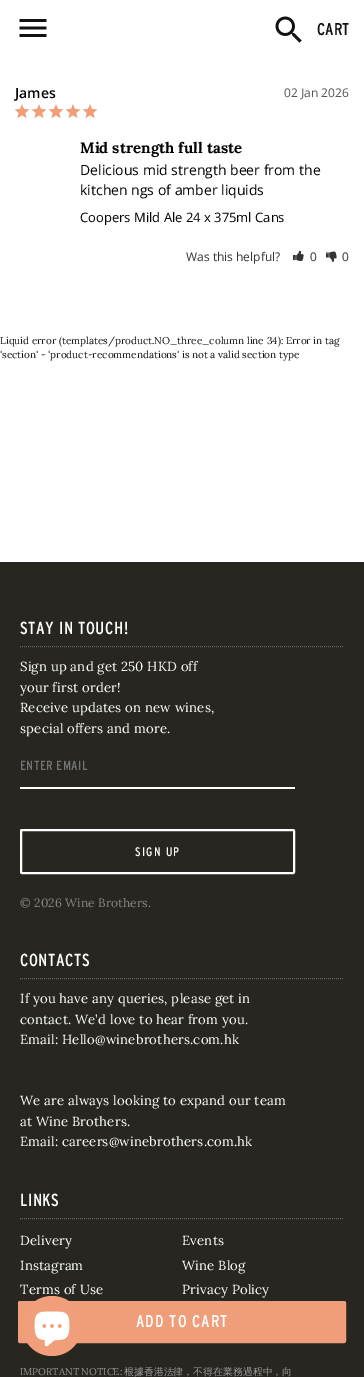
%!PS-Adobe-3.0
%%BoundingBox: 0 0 364 1377
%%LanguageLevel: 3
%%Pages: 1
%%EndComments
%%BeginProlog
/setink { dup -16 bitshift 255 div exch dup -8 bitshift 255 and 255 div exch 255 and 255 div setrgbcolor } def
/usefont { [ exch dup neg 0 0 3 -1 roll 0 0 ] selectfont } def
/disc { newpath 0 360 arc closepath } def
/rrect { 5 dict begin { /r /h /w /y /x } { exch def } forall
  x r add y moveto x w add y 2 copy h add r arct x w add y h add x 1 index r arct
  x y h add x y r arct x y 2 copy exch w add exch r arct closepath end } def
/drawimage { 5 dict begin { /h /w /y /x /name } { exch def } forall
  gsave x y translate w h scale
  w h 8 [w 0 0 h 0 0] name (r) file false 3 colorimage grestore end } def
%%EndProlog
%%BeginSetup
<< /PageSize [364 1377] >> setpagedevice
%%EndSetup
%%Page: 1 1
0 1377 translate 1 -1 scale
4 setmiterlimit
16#FFFFFF setink
0 0 364 1377 rectfill
(img1.raw) 19 19 28 18 drawimage
(img2.raw) 275 16 27 27 drawimage
/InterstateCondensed-Regular 17 usefont
16#111111 setink
317 35 moveto (CART) show
/OpenSans-SemiBold 14 usefont
16#000000 setink
15 98 moveto (James) show
/OpenSans-Regular 12 usefont
16#555555 setink
284 97 moveto (02 Jan 2026) show
(img3.raw) 15 104 15 15 drawimage
(img4.raw) 31 104 16 15 drawimage
(img4.raw) 48 104 16 15 drawimage
(img4.raw) 65 104 16 15 drawimage
(img4.raw) 82 104 16 15 drawimage
/Lora-Bold 15 usefont
16#000000 setink
80 153 moveto (Mid strength full taste) show
/OpenSans-Regular 14 usefont
80 175 moveto (Delicious mid strength beer from the) show
80 195 moveto (kitchen ngs of amber liquids) show
/OpenSans-Regular 13 usefont
80 222 moveto (Coopers Mild Ale 24 x 375ml Cans) show
/OpenSans-Regular 12 usefont
16#333333 setink
186 261 moveto (Was this helpful?) show
(img5.raw) 293 250 11 11 drawimage
310 261 moveto (0) show
(img6.raw) 326 251 11 11 drawimage
342 261 moveto (0) show
16#272621 setink
0 562 364 815 rectfill
16#F09E7A setink
19 1302 326 40 1 rrect gsave fill grestore
2 setlinewidth
stroke
/InterstateCondensed-Regular 17 usefont
16#FFFFFF setink
136 1327 moveto 1 0 (ADD TO CART) ashow
/Lora-Regular 10 usefont
16#111111 setink
0 344 moveto (Liquid error \(templates/product.NO_three_column line 34\): Error in tag) show
0 358 moveto ('section' - 'product-recommendations' is not a valid section type) show
16#262726 setink
20 913 324 1 rectfill
16#666666 setink
1 setlinewidth
[1 1] 0 setdash
20 646.5 moveto 344 646.5 lineto stroke
/InterstateCondensed-Regular 17.5 usefont
16#FFFFFF setink
20 634 moveto 0.5 0 (STAY IN TOUCH!) ashow
/Lora-Regular 13.2 usefont
20 671 moveto 0.15 0 (Sign up and get 250 HKD off) ashow
20 692 moveto 0.15 0 (your first order!) ashow
20 712 moveto 0.15 0 (Receive updates on new wines,) ashow
20 733 moveto 0.15 0 (special offers and more.) ashow
20 787 275 2 rectfill
/InterstateCondensed-Regular 13.2 usefont
16#757575 setink
20 770 moveto 0.4 0 (ENTER EMAIL) ashow
16#FFFFFF setink
2 setlinewidth
[] 0 setdash
21 830 273 43 1 rrect stroke
/InterstateCondensed-Regular 12.5 usefont
16#FDFDF9 setink
135 856 moveto 1.25 0 (SIGN UP) ashow
/Lora-Regular 12.1 usefont
16#888888 setink
20 907 moveto 0.1 0 (© 2026 Wine Brothers.) ashow
16#262726 setink
20 1153 324 1 rectfill
16#666666 setink
1 setlinewidth
[1 1] 0 setdash
20 978.5 moveto 344 978.5 lineto stroke
/InterstateCondensed-Regular 17.5 usefont
16#FFFFFF setink
20 966 moveto 0.5 0 (CONTACTS) ashow
/Lora-Regular 13.2 usefont
20 1003 moveto 0.15 0 (If you have any queries, please get in) ashow
20 1024 moveto 0.15 0 (contact. We'd love to hear from you.) ashow
20 1044 moveto 0.15 0 (Email: Hello@winebrothers.com.hk) ashow
20 1105 moveto 0.15 0 (We are always looking to expand our team) ashow
20 1126 moveto 0.15 0 (at Wine Brothers.) ashow
20 1146 moveto 0.15 0 (Email: careers@winebrothers.com.hk) ashow
16#666666 setink
20 1218.5 moveto 344 1218.5 lineto stroke
/InterstateCondensed-Regular 17.5 usefont
16#FFFFFF setink
20 1206 moveto 0.5 0 (LINKS) ashow
/Lora-Regular 13.2 usefont
20 1245 moveto 0.15 0 (Delivery) ashow
182 1245 moveto 0.15 0 (Events) ashow
20 1270 moveto 0.15 0 (Instagram) ashow
182 1270 moveto 0.15 0 (Wine Blog) ashow
20 1294 moveto 0.15 0 (Terms of Use) ashow
182 1294 moveto 0.15 0 (Privacy Policy) ashow
/Lora-Regular 9.9 usefont
16#999999 setink
20 1375 moveto (IMPORTANT NOTICE:) show
/WenQuanYiZenHei-Medium 9.9 usefont
124 1375 moveto (根據香港法律，不得在業務過程中，向) show
16#F19F7A setink
52 1326 30 disc fill
(img7.raw) 34 1311 36 36 drawimage
showpage
%%EOF
